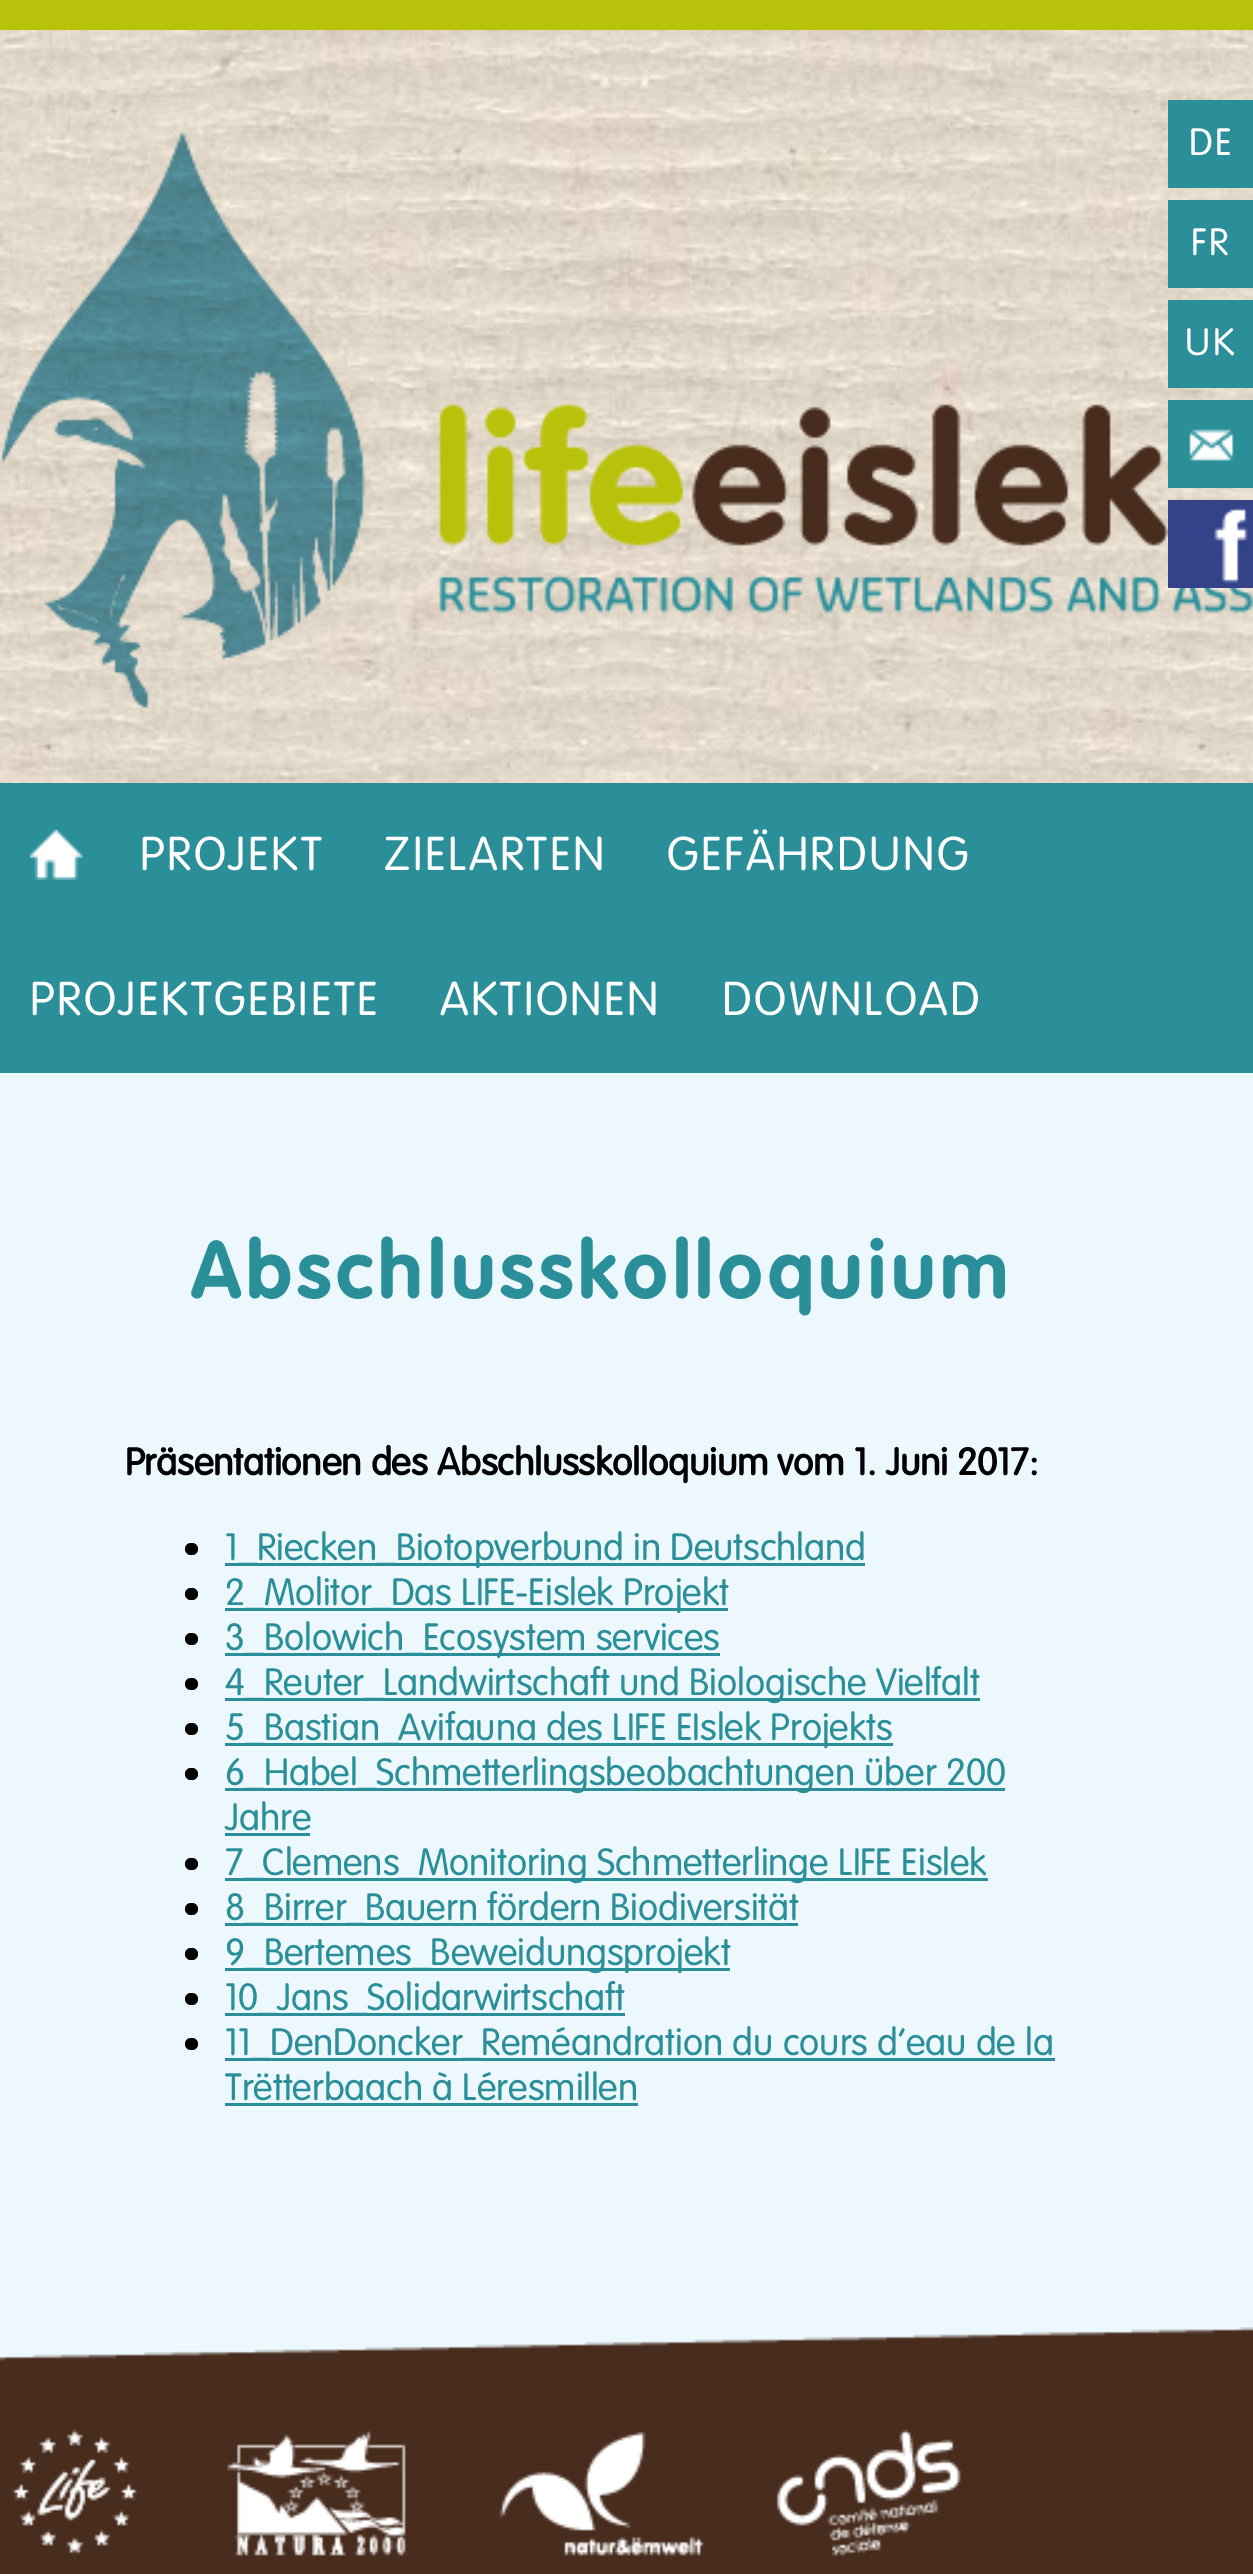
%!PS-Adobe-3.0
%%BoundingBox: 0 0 1253 2574
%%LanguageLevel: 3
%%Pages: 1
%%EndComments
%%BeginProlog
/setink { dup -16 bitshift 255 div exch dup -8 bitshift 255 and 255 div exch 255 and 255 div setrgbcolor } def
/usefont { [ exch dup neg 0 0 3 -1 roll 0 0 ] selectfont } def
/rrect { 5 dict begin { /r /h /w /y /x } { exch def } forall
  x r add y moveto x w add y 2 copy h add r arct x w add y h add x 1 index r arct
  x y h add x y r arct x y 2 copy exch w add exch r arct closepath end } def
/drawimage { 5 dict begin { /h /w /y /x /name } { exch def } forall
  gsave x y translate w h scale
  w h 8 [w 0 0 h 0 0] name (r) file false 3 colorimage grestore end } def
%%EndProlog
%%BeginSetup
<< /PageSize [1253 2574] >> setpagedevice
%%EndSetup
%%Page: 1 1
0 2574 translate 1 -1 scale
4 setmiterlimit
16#ECF8FE setink
0 0 1253 2574 rectfill
(img1.raw) 0 30 1253 753 drawimage
16#B9C20A setink
0 0 1253 30 rectfill
(img2.raw) 1 131 1252 577 drawimage
16#2A8F99 setink
1168 100 85 88 rectfill
/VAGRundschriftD-Light 40 usefont
16#FFFFFF setink
1189 155 moveto 2.5 0 (DE) ashow
16#2A8F99 setink
1168 200 85 88 rectfill
16#FFFFFF setink
1191 255 moveto 2.5 0 (FR) ashow
16#2A8F99 setink
1168 300 85 88 rectfill
16#FFFFFF setink
1185 355 moveto 2.5 0 (UK) ashow
16#2A8F99 setink
1168 400 85 88 rectfill
(img3.raw) 1189 429 45 32 drawimage
16#334289 setink
1168 500 85 88 rectfill
(img4.raw) 1214 507 35 77 drawimage
16#2A8F99 setink
0 783 1253 290 rectfill
(img5.raw) 30 830 53 50 drawimage
/VAGRundschriftD-Light 50 usefont
16#FFFFFF setink
140 870 moveto 2.5 0 (PROJEKT) ashow
384 870 moveto 2.5 0 (ZIELARTEN) ashow
667 870 moveto 2.5 0 (GEFÄHRDUNG) ashow
30 1015 moveto 2.5 0 (PROJEKTGEBIETE) ashow
440 1015 moveto 2.5 0 (AKTIONEN) ashow
722 1015 moveto 2.5 0 (DOWNLOAD) ashow
/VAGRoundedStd-Bold 80 usefont
16#2A8F99 setink
191 1298 moveto 5 0 (Abschlusskolloquium) ashow
/VAGRundschriftD-Bold 40 usefont
16#000000 setink
125 1475 moveto (Präsentationen des Abschlusskolloquium vom 1. Juni 2017:) show
185 1543 13 12 6 rrect fill
16#2A8F99 setink
225 1563 640 3 rectfill
/VAGRundschriftD-Light 40 usefont
225 1560 moveto (1_Riecken_Biotopverbund in Deutschland) show
16#000000 setink
185 1588 13 12 6 rrect fill
16#2A8F99 setink
225 1608 503 3 rectfill
225 1605 moveto (2_Molitor_Das LIFE-Eislek Projekt) show
16#000000 setink
185 1633 13 12 6 rrect fill
16#2A8F99 setink
225 1653 495 3 rectfill
225 1650 moveto (3_Bolowich_Ecosystem services) show
16#000000 setink
185 1678 13 12 6 rrect fill
16#2A8F99 setink
225 1698 755 3 rectfill
225 1695 moveto (4_Reuter_Landwirtschaft und Biologische Vielfalt) show
16#000000 setink
185 1723 13 12 6 rrect fill
16#2A8F99 setink
225 1743 668 3 rectfill
225 1740 moveto (5_Bastian_Avifauna des LIFE EIslek Projekts) show
16#000000 setink
185 1768 13 12 6 rrect fill
16#2A8F99 setink
225 1788 780 3 rectfill
225 1785 moveto (6_Habel_Schmetterlingsbeobachtungen über 200) show
225 1830 moveto (Jahre) show
225 1833 85 3 rectfill
16#000000 setink
185 1858 13 12 6 rrect fill
16#2A8F99 setink
225 1878 763 3 rectfill
225 1875 moveto (7_Clemens_Monitoring Schmetterlinge LIFE Eislek) show
16#000000 setink
185 1903 13 12 6 rrect fill
16#2A8F99 setink
225 1923 573 3 rectfill
225 1920 moveto (8_Birrer_Bauern fördern Biodiversität) show
16#000000 setink
185 1948 13 12 6 rrect fill
16#2A8F99 setink
225 1968 505 3 rectfill
225 1965 moveto (9_Bertemes_Beweidungsprojekt) show
16#000000 setink
185 1993 13 12 6 rrect fill
16#2A8F99 setink
225 2013 400 3 rectfill
225 2010 moveto (10_Jans_Solidarwirtschaft) show
16#000000 setink
185 2038 13 12 6 rrect fill
16#2A8F99 setink
225 2058 830 3 rectfill
225 2055 moveto (11_DenDoncker_Reméandration du cours d‘eau de la) show
225 2100 moveto (Trëtterbaach à Léresmillen) show
225 2103 413 3 rectfill
(img6.raw) 0 2327 1253 247 drawimage
(img7.raw) 12 2429 126 125 drawimage
(img8.raw) 227 2430 179 126 drawimage
(img9.raw) 499 2431 205 125 drawimage
(img10.raw) 776 2429 185 127 drawimage
showpage
%%EOF
